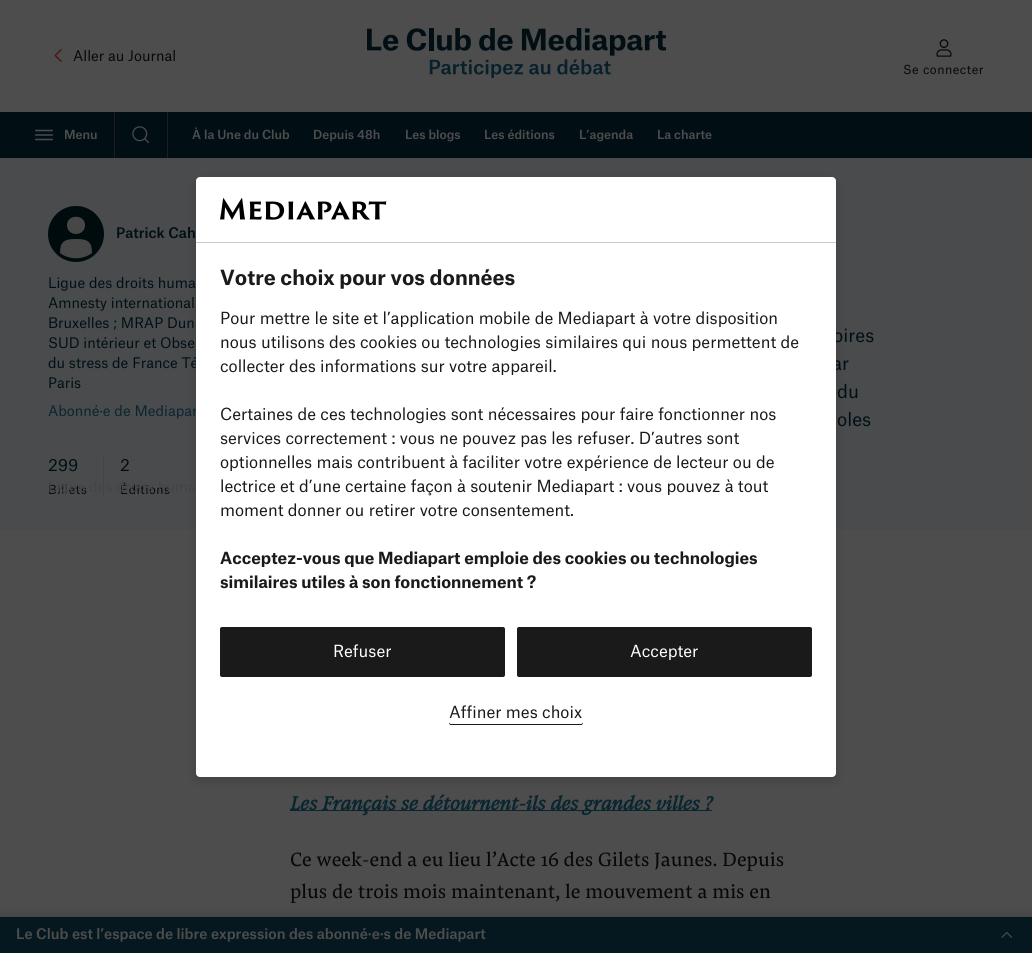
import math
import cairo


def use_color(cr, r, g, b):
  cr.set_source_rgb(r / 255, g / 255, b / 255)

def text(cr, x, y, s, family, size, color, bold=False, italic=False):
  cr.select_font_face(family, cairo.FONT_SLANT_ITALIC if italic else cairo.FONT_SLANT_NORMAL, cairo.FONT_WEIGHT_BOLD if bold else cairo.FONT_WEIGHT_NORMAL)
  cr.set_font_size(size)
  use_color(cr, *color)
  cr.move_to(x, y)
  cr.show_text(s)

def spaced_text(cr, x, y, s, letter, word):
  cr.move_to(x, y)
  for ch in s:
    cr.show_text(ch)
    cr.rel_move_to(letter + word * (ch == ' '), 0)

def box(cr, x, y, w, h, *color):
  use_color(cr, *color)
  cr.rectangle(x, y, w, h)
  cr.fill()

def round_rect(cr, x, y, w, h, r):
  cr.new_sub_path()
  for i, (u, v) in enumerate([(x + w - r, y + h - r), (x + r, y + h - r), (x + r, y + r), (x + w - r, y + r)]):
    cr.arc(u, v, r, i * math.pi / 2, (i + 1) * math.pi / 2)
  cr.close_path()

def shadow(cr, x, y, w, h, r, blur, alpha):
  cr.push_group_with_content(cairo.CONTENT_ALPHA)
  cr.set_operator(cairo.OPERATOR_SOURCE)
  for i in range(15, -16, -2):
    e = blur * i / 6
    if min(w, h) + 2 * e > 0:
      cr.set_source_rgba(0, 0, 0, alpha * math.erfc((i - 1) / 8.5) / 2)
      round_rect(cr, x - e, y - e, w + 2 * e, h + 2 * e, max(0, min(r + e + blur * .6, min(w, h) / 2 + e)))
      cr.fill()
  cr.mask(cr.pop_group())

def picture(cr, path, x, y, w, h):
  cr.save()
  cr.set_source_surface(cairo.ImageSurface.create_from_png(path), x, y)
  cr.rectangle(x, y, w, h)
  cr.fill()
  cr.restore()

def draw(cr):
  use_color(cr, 77, 77, 77)
  cr.paint()
  picture(cr, "img_01.png", 54, 49, 8, 13)
  picture(cr, "img_02.png", 367, 28, 299, 50)
  picture(cr, "img_03.png", 936, 39, 16, 18)
  box(cr, 0, 112, 1032, 46, 1, 15, 21)
  picture(cr, "img_04.png", 35, 129, 18, 12)
  box(cr, 114, 112, 1, 46, 29, 29, 29)
  picture(cr, "img_05.png", 132, 126, 18, 18)
  box(cr, 167, 112, 1, 46, 29, 29, 29)
  box(cr, 0, 158, 1032, 372, 73, 75, 77)
  use_color(cr, 0, 11, 14)
  cr.arc(76, 234, 28, 0, 2 * math.pi)
  cr.fill()
  use_color(cr, 71, 71, 71)
  cr.set_fill_rule(cairo.FILL_RULE_EVEN_ODD)
  cr.new_path()
  cr.move_to(92, 253)
  cr.curve_to(83, 260, 69, 260, 60, 253)
  cr.curve_to(60, 241, 65, 239, 76, 239)
  cr.curve_to(87, 239, 92, 241, 92, 253)
  cr.close_path()
  cr.move_to(85, 225)
  cr.curve_to(85, 237, 67, 237, 67, 225)
  cr.curve_to(67, 214, 85, 214, 85, 225)
  cr.close_path()
  cr.fill()
  box(cr, 103, 454, 1, 44, 69, 69, 69)
  box(cr, 290, 810, 422, 1, 9, 37, 48)
  use_color(cr, 0, 0, 0)
  shadow(cr, 0, 915, 1032, 36, 0, 5, 0.13)
  box(cr, 0, 917, 1032, 36, 6, 24, 31)
  picture(cr, "img_06.png", 1001, 932, 12, 6)
  use_color(cr, 0, 0, 0)
  shadow(cr, 196, 181, 640, 600, 4, 5, 0.15)
  text(cr, 73, 61, "Aller au Journal", "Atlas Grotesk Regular", 14, (8, 8, 8))
  cr.set_font_size(12)
  spaced_text(cr, 903, 74, "Se connecter", 0.5, 0)
  text(cr, 64, 139, "Menu", "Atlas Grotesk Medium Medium", 12, (77, 77, 77))
  text(cr, 192, 139, "À la Une du Club", "Atlas Grotesk Medium Medium", 12, (77, 77, 77))
  text(cr, 313, 139, "Depuis 48h", "Atlas Grotesk Medium Medium", 12, (77, 77, 77))
  text(cr, 405, 139, "Les blogs", "Atlas Grotesk Medium Medium", 12, (77, 77, 77))
  text(cr, 484, 139, "Les éditions", "Atlas Grotesk Medium Medium", 12, (77, 77, 77))
  text(cr, 579, 139, "L’agenda", "Atlas Grotesk Medium Medium", 12, (77, 77, 77))
  text(cr, 657, 139, "La charte", "Atlas Grotesk Medium Medium", 12, (77, 77, 77))
  text(cr, 116, 238, "Patrick Cah", "Atlas Grotesk Medium Medium", 14, (1, 15, 21))
  text(cr, 48, 288, "Ligue des droits huma", "Atlas Grotesk Regular", 14, (1, 15, 21))
  text(cr, 48, 308, "Amnesty international", "Atlas Grotesk Regular", 14, (1, 15, 21))
  text(cr, 48, 328, "Bruxelles ; MRAP Dun", "Atlas Grotesk Regular", 14, (1, 15, 21))
  text(cr, 48, 348, "SUD intérieur et Obse", "Atlas Grotesk Regular", 14, (1, 15, 21))
  text(cr, 48, 368, "du stress de France Té", "Atlas Grotesk Regular", 14, (1, 15, 21))
  text(cr, 48, 388, "Paris", "Atlas Grotesk Regular", 14, (1, 15, 21))
  text(cr, 48, 416, "Abonné·e de Mediapar", "Atlas Grotesk Regular", 14, (9, 37, 48))
  text(cr, 48, 471, "299", "Atlas Grotesk Regular", 16, (1, 15, 21))
  cr.set_font_size(12)
  use_color(cr, 8, 8, 8)
  spaced_text(cr, 48, 494, "Billets", 0.5, 0)
  text(cr, 120, 471, "2", "Atlas Grotesk Regular", 16, (1, 15, 21))
  cr.set_font_size(12)
  use_color(cr, 8, 8, 8)
  spaced_text(cr, 120, 494, "Éditions", 0.5, 0)
  text(cr, 833, 342, "oires", "Atlas Grotesk Regular", 18, (1, 15, 21))
  text(cr, 832, 370, "ar", "Atlas Grotesk Regular", 18, (1, 15, 21))
  text(cr, 837, 398, "du", "Atlas Grotesk Regular", 18, (1, 15, 21))
  text(cr, 837, 426, "oles", "Atlas Grotesk Regular", 18, (1, 15, 21))
  text(cr, 48, 492, "Ligue des droits huma", "Atlas Grotesk Regular", 14, (66, 68, 70))
  text(cr, 290, 810, "Les Français se détournent-ils des grandes villes ?", "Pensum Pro", 20, (9, 37, 48), bold=True, italic=True)
  text(cr, 290, 866, "Ce week-end a eu lieu l’Acte 16 des Gilets Jaunes. Depuis", "Pensum Pro", 20, (8, 8, 8))
  text(cr, 290, 898, "plus de trois mois maintenant, le mouvement a mis en", "Pensum Pro", 20, (8, 8, 8))
  text(cr, 16, 939, "Le Club est l’espace de libre expression des abonné·e·s de Mediapart", "Atlas Grotesk Medium Medium", 14, (77, 77, 77))
  use_color(cr, 255, 255, 255)
  round_rect(cr, 196, 177, 640, 600, 4)
  cr.fill()
  box(cr, 196, 242, 640, 1, 204, 204, 204)
  picture(cr, "img_07.png", 220, 198, 167, 22)
  text(cr, 220, 285, "Votre choix pour vos données", "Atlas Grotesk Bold", 20, (26, 26, 26), bold=True)
  text(cr, 220, 324, "Pour mettre le site et l’application mobile de Mediapart à votre disposition", "Atlas Grotesk Regular", 16, (26, 26, 26))
  text(cr, 220, 348, "nous utilisons des cookies ou technologies similaires qui nous permettent de", "Atlas Grotesk Regular", 16, (26, 26, 26))
  text(cr, 220, 372, "collecter des informations sur votre appareil.", "Atlas Grotesk Regular", 16, (26, 26, 26))
  text(cr, 220, 420, "Certaines de ces technologies sont nécessaires pour faire fonctionner nos", "Atlas Grotesk Regular", 16, (26, 26, 26))
  text(cr, 220, 444, "services correctement : vous ne pouvez pas les refuser. D’autres sont", "Atlas Grotesk Regular", 16, (26, 26, 26))
  text(cr, 220, 468, "optionnelles mais contribuent à faciliter votre expérience de lecteur ou de", "Atlas Grotesk Regular", 16, (26, 26, 26))
  text(cr, 220, 492, "lectrice et d’une certaine façon à soutenir Mediapart : vous pouvez à tout", "Atlas Grotesk Regular", 16, (26, 26, 26))
  text(cr, 220, 516, "moment donner ou retirer votre consentement.", "Atlas Grotesk Regular", 16, (26, 26, 26))
  text(cr, 220, 564, "Acceptez-vous que Mediapart emploie des cookies ou technologies", "Atlas Grotesk Bold", 16, (26, 26, 26), bold=True)
  text(cr, 220, 588, "similaires utiles à son fonctionnement ?", "Atlas Grotesk Bold", 16, (26, 26, 26), bold=True)
  round_rect(cr, 220, 627, 285, 50, 2)
  cr.fill()
  text(cr, 333, 657, "Refuser", "Atlas Grotesk Regular", 16, (255, 255, 255))
  use_color(cr, 26, 26, 26)
  round_rect(cr, 517, 627, 295, 50, 2)
  cr.fill()
  text(cr, 630, 657, "Accepter", "Atlas Grotesk Regular", 16, (255, 255, 255))
  use_color(cr, 26, 26, 26)
  cr.set_fill_rule(cairo.FILL_RULE_WINDING)
  cr.new_path()
  cr.move_to(449, 722)
  cr.curve_to(449, 723, 449, 725, 451, 725)
  cr.line_to(581, 725)
  cr.curve_to(583, 725, 583, 723, 583, 722)
  cr.curve_to(583, 723, 582, 724, 581, 724)
  cr.line_to(451, 724)
  cr.curve_to(450, 724, 449, 723, 449, 722)
  cr.close_path()
  cr.fill()
  text(cr, 449, 718, "Affiner mes choix", "Atlas Grotesk Regular", 16, (26, 26, 26))


surface = cairo.ImageSurface(cairo.FORMAT_RGB24, 1032, 953)
cr = cairo.Context(surface)
options = cairo.FontOptions()
options.set_hint_metrics(cairo.HINT_METRICS_OFF)
options.set_hint_style(cairo.HINT_STYLE_NONE)
cr.set_font_options(options)
cr.set_miter_limit(4)
draw(cr)
surface.write_to_png("out.png")
